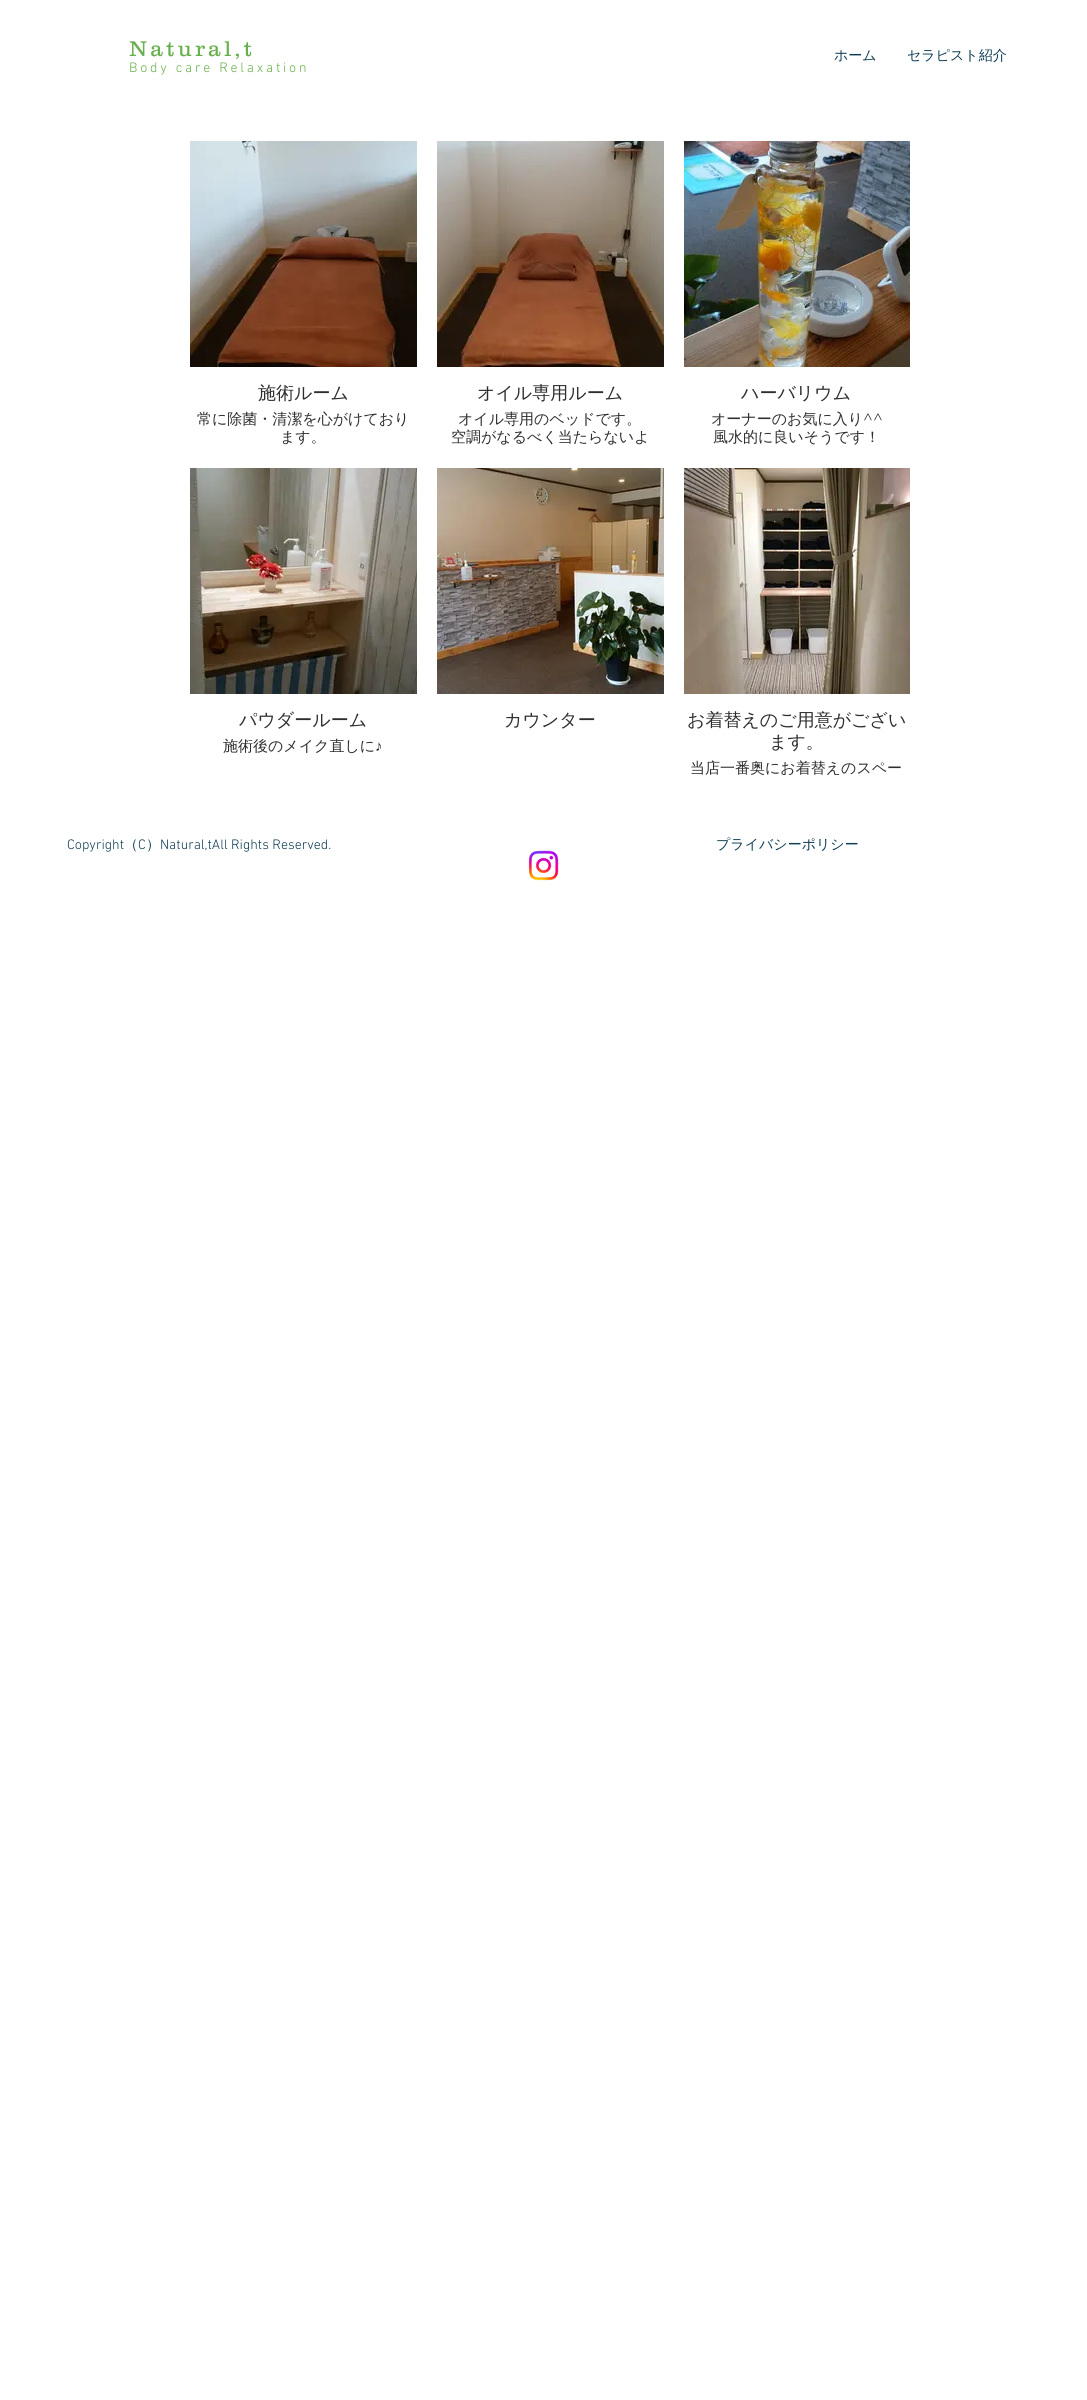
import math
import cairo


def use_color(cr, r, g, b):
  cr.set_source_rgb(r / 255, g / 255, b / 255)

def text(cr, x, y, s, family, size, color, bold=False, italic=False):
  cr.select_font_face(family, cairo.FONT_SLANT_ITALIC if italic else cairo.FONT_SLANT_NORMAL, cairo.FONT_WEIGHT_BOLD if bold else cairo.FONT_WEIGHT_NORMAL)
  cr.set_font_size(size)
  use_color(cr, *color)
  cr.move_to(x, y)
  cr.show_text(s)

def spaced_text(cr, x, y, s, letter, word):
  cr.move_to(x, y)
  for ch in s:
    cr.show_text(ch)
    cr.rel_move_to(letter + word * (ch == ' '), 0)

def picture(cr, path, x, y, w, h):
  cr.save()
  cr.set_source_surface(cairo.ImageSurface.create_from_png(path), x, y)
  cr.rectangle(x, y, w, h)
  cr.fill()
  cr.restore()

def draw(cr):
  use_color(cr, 255, 255, 255)
  cr.paint()
  picture(cr, "img_01.png", 190, 141, 227, 226)
  picture(cr, "img_02.png", 437, 141, 227, 226)
  picture(cr, "img_03.png", 684, 141, 226, 226)
  picture(cr, "img_04.png", 190, 468, 227, 226)
  picture(cr, "img_05.png", 437, 468, 227, 226)
  picture(cr, "img_06.png", 684, 468, 226, 226)
  picture(cr, "img_07.png", 528, 850, 31, 31)
  cr.select_font_face("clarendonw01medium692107 Light")
  cr.set_font_size(22)
  use_color(cr, 104, 176, 77)
  spaced_text(cr, 129, 56, "Natural,t", 3.25, 0)
  cr.select_font_face("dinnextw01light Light")
  cr.set_font_size(14)
  spaced_text(cr, 129, 72, "Body care Relaxation", 2.75, 0)
  text(cr, 834, 60, "ホーム", "WenQuanYi Zen Hei Medium", 14, (14, 60, 83))
  text(cr, 907, 60, "セラピスト紹介", "WenQuanYi Zen Hei Medium", 14, (14, 60, 83))
  text(cr, 258, 399, "施術ルーム", "WenQuanYi Zen Hei Medium", 18, (47, 46, 46))
  text(cr, 197, 424, "常に除菌・清潔を心がけており", "WenQuanYi Zen Hei Medium", 15, (47, 46, 46))
  text(cr, 280, 442, "ます。", "WenQuanYi Zen Hei Medium", 15, (47, 46, 46))
  text(cr, 477, 399, "オイル専用ルーム", "WenQuanYi Zen Hei Medium", 18, (47, 46, 46))
  text(cr, 458, 424, "オイル専用のベッドです。", "WenQuanYi Zen Hei Medium", 15, (47, 46, 46))
  text(cr, 451, 442, "空調がなるべく当たらないよ", "WenQuanYi Zen Hei Medium", 15, (47, 46, 46))
  text(cr, 741, 399, "ハーバリウム", "WenQuanYi Zen Hei Medium", 18, (47, 46, 46))
  text(cr, 711, 424, "オーナーのお気に入り", "WenQuanYi Zen Hei Medium", 15, (47, 46, 46))
  text(cr, 863, 424, "^^", "helvetica Light", 15, (47, 46, 46))
  text(cr, 713, 442, "風水的に良いそうです！", "WenQuanYi Zen Hei Medium", 15, (47, 46, 46))
  text(cr, 239, 726, "パウダールーム", "WenQuanYi Zen Hei Medium", 18, (47, 46, 46))
  text(cr, 223, 751, "施術後のメイク直しに", "WenQuanYi Zen Hei Medium", 15, (47, 46, 46))
  text(cr, 375, 751, "♪", "Liberation Sans", 15, (47, 46, 46))
  text(cr, 504, 726, "カウンター", "WenQuanYi Zen Hei Medium", 18, (47, 46, 46))
  text(cr, 687, 726, "お着替えのご用意がござい", "WenQuanYi Zen Hei Medium", 18, (47, 46, 46))
  text(cr, 769, 748, "ます。", "WenQuanYi Zen Hei Medium", 18, (47, 46, 46))
  cr.save()
  cr.rectangle(684, 759, 226, 16)
  cr.clip()
  text(cr, 690, 773, "当店一番奥にお着替えのスペー", "WenQuanYi Zen Hei Medium", 15, (47, 46, 46))
  cr.restore()
  text(cr, 67, 849, "Copyright", "dinnextw01light Light", 14, (14, 60, 83))
  text(cr, 124, 849, "（", "WenQuanYi Zen Hei Medium", 14, (14, 60, 83))
  text(cr, 138, 849, "C", "dinnextw01light Light", 14, (14, 60, 83))
  text(cr, 146, 849, "）", "WenQuanYi Zen Hei Medium", 14, (14, 60, 83))
  text(cr, 160, 849, "Natural,tAll Rights Reserved.", "dinnextw01light Light", 14, (14, 60, 83))
  text(cr, 716, 849, "プライバシーポリシー", "WenQuanYi Zen Hei Medium", 14, (14, 60, 83))


surface = cairo.ImageSurface(cairo.FORMAT_RGB24, 1087, 2400)
cr = cairo.Context(surface)
options = cairo.FontOptions()
options.set_hint_metrics(cairo.HINT_METRICS_OFF)
options.set_hint_style(cairo.HINT_STYLE_NONE)
cr.set_font_options(options)
cr.set_miter_limit(4)
draw(cr)
surface.write_to_png("out.png")
